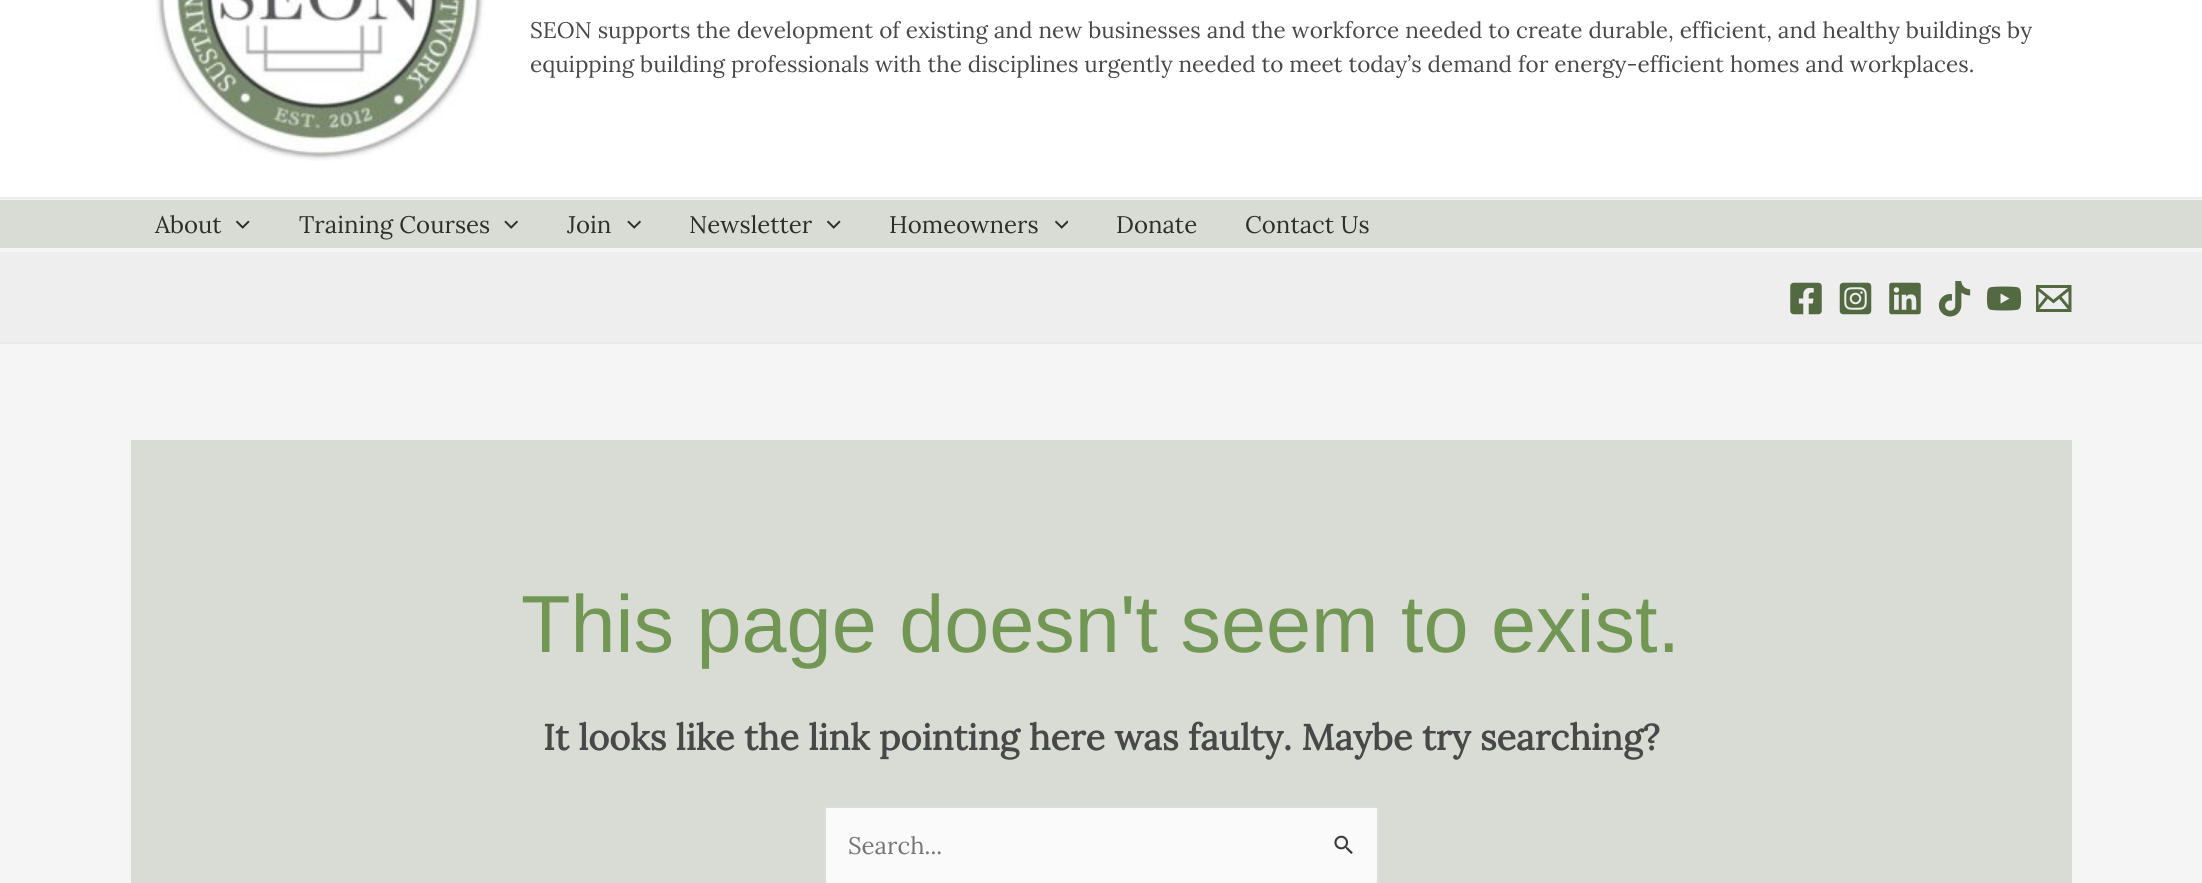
import math
import cairo


def use_color(cr, r, g, b):
  cr.set_source_rgb(r / 255, g / 255, b / 255)

def text(cr, x, y, s, family, size, color, bold=False, italic=False):
  cr.select_font_face(family, cairo.FONT_SLANT_ITALIC if italic else cairo.FONT_SLANT_NORMAL, cairo.FONT_WEIGHT_BOLD if bold else cairo.FONT_WEIGHT_NORMAL)
  cr.set_font_size(size)
  use_color(cr, *color)
  cr.move_to(x, y)
  cr.show_text(s)

def box(cr, x, y, w, h, *color):
  use_color(cr, *color)
  cr.rectangle(x, y, w, h)
  cr.fill()

def round_rect(cr, x, y, w, h, r):
  cr.new_sub_path()
  for i, (u, v) in enumerate([(x + w - r, y + h - r), (x + r, y + h - r), (x + r, y + r), (x + w - r, y + r)]):
    cr.arc(u, v, r, i * math.pi / 2, (i + 1) * math.pi / 2)
  cr.close_path()

def picture(cr, path, x, y, w, h):
  cr.save()
  cr.set_source_surface(cairo.ImageSurface.create_from_png(path), x, y)
  cr.rectangle(x, y, w, h)
  cr.fill()
  cr.restore()

def draw(cr):
  use_color(cr, 245, 245, 245)
  cr.paint()
  box(cr, 0, 0, 2202, 197, 255, 255, 255)
  box(cr, 0, 197, 2202, 2, 234, 234, 234)
  picture(cr, "img_01.png", 155, 0, 329, 161)
  box(cr, 0, 200, 2202, 48, 216, 220, 212)
  picture(cr, "img_02.png", 236, 220, 14, 9)
  picture(cr, "img_03.png", 504, 220, 14, 9)
  picture(cr, "img_03.png", 627, 220, 14, 9)
  picture(cr, "img_02.png", 827, 220, 14, 9)
  picture(cr, "img_04.png", 1055, 220, 13, 9)
  box(cr, 0, 252, 2202, 90, 238, 238, 238)
  box(cr, 0, 342, 2202, 2, 234, 234, 234)
  picture(cr, "img_05.png", 1790, 282, 32, 33)
  picture(cr, "img_06.png", 1839, 282, 33, 33)
  picture(cr, "img_07.png", 1889, 282, 32, 33)
  picture(cr, "img_08.png", 1938, 281, 33, 36)
  picture(cr, "img_09.png", 1986, 286, 36, 25)
  picture(cr, "img_10.png", 2036, 285, 36, 27)
  box(cr, 131, 440, 1941, 443, 217, 220, 213)
  use_color(cr, 250, 250, 250)
  round_rect(cr, 825, 807, 553, 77, 2)
  cr.fill_preserve()
  use_color(cr, 221, 221, 221)
  cr.stroke()
  picture(cr, "img_11.png", 1334, 835, 19, 19)
  text(cr, 530, 38, "SEON supports the development of existing and new businesses and the workforce needed to create durable, efficient, and healthy buildings by", "Lora", 22.5, (73, 72, 72))
  text(cr, 530, 72, "equipping building professionals with the disciplines urgently needed to meet today’s demand for energy-efficient homes and workplaces.", "Lora", 22.5, (73, 72, 72))
  text(cr, 155, 233, "About", "Lora", 24, (45, 46, 42))
  text(cr, 299, 233, "Training Courses", "Lora", 24, (45, 46, 42))
  text(cr, 567, 233, "Join", "Lora", 24, (45, 46, 42))
  text(cr, 689, 233, "Newsletter", "Lora", 24, (45, 46, 42))
  text(cr, 889, 233, "Homeowners", "Lora", 24, (45, 46, 42))
  text(cr, 1116, 233, "Donate", "Lora", 24, (45, 46, 42))
  text(cr, 1245, 233, "Contact Us", "Lora", 24, (45, 46, 42))
  text(cr, 521, 652, "This page doesn't seem to exist.", "Liberation Sans", 81, (114, 150, 83))
  text(cr, 543, 750, "It looks like the link pointing here was faulty. Maybe try searching?", "Lora", 36, (73, 72, 72), bold=True)
  text(cr, 848, 854, "Search...", "Lora", 24, (117, 117, 117))


surface = cairo.ImageSurface(cairo.FORMAT_RGB24, 2202, 883)
cr = cairo.Context(surface)
options = cairo.FontOptions()
options.set_hint_metrics(cairo.HINT_METRICS_OFF)
options.set_hint_style(cairo.HINT_STYLE_NONE)
cr.set_font_options(options)
cr.set_miter_limit(4)
draw(cr)
surface.write_to_png("out.png")
